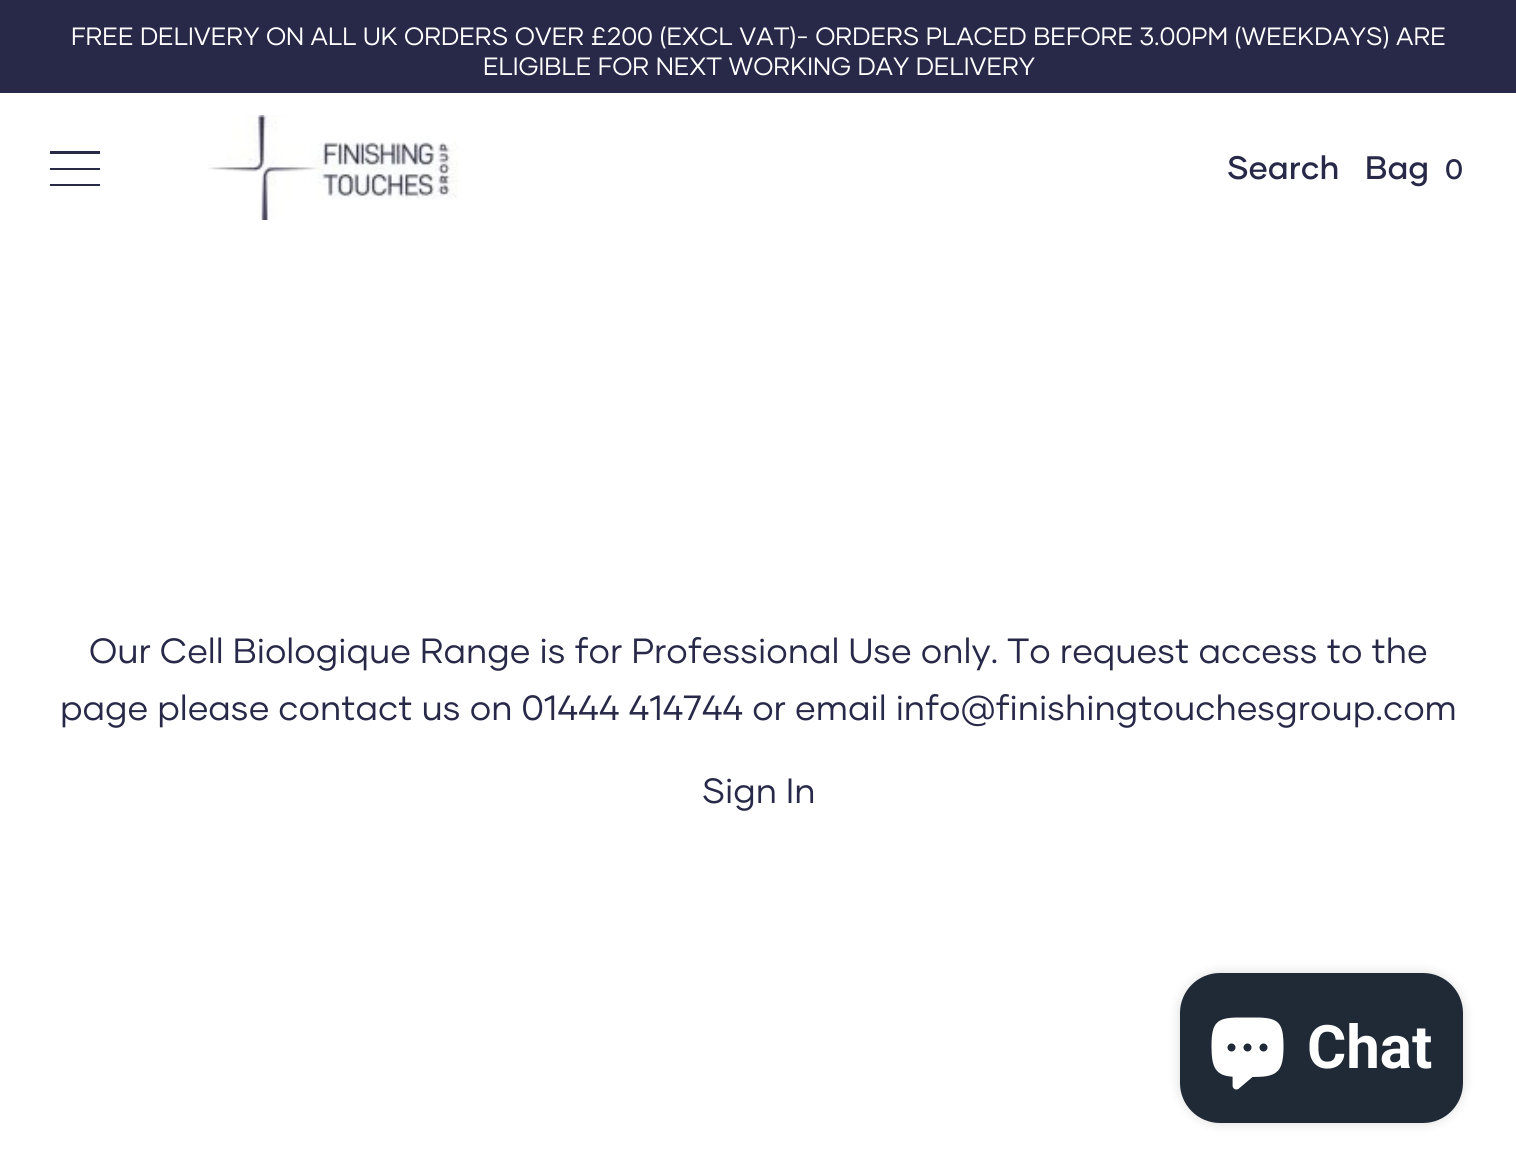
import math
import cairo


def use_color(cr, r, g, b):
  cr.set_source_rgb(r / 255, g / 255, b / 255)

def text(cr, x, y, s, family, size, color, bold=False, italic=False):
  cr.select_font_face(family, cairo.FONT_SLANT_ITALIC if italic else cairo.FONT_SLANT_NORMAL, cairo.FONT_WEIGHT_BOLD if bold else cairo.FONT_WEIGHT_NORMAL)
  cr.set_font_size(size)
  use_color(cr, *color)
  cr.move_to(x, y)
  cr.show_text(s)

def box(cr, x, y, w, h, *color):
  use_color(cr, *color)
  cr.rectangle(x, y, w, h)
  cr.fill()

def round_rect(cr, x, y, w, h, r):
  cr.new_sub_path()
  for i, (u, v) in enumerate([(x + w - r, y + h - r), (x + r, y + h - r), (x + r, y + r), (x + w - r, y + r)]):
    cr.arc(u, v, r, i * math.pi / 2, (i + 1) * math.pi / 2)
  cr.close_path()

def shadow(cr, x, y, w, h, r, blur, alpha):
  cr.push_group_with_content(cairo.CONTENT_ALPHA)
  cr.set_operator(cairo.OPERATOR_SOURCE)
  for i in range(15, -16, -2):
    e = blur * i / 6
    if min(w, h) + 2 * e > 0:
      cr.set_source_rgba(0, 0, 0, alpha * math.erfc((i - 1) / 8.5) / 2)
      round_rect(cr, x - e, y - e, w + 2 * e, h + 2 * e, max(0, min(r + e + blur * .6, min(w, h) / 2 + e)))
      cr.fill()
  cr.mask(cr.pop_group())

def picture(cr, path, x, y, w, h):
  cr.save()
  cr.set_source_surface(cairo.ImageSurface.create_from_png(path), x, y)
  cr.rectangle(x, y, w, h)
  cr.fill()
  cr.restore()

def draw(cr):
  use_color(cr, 255, 255, 255)
  cr.paint()
  box(cr, 0, 0, 1516, 93, 40, 41, 73)
  cr.new_path()
  cr.move_to(50, 186)
  cr.line_to(50, 184)
  cr.line_to(100, 184)
  cr.line_to(100, 186)
  cr.close_path()
  cr.move_to(50, 168)
  cr.line_to(100, 168)
  cr.line_to(100, 170)
  cr.line_to(50, 170)
  cr.close_path()
  cr.move_to(50, 151)
  cr.line_to(100, 151)
  cr.line_to(100, 154)
  cr.line_to(50, 154)
  cr.close_path()
  cr.fill()
  picture(cr, "img_01.png", 208, 115, 250, 105)
  use_color(cr, 0, 0, 0)
  shadow(cr, 1180, 973, 283, 150, 40, 6, 0.15)
  use_color(cr, 32, 42, 54)
  round_rect(cr, 1180, 973, 283, 150, 40)
  cr.fill()
  picture(cr, "img_02.png", 1211, 1017, 73, 73)
  text(cr, 71, 45, "FREE DELIVERY ON ALL UK ORDERS OVER £200 (EXCL VAT)- ORDERS PLACED BEFORE 3.00PM (WEEKDAYS) ARE", "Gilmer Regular", 25, (255, 255, 255))
  text(cr, 483, 75, "ELIGIBLE FOR NEXT WORKING DAY DELIVERY", "Gilmer Regular", 25, (255, 255, 255))
  text(cr, 1227, 179, "Search", "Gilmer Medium", 32.5, (40, 41, 73))
  text(cr, 1365, 179, "Bag", "Gilmer Medium", 32.5, (40, 41, 73))
  text(cr, 1445, 179, "0", "Gilmer Medium", 28, (40, 41, 73))
  text(cr, 89, 663, "Our Cell Biologique Range is for Professional Use only. To request access to the", "Gilmer Regular", 35, (40, 41, 73))
  text(cr, 60, 720, "page please contact us on 01444 414744 or email info@finishingtouchesgroup.com", "Gilmer Regular", 35, (40, 41, 73))
  text(cr, 702, 803, "Sign In", "Gilmer Regular", 35, (40, 41, 73))
  text(cr, 1307, 1068, "Chat", "Roboto", 60, (255, 255, 255), bold=True)


surface = cairo.ImageSurface(cairo.FORMAT_RGB24, 1516, 1173)
cr = cairo.Context(surface)
options = cairo.FontOptions()
options.set_hint_metrics(cairo.HINT_METRICS_OFF)
options.set_hint_style(cairo.HINT_STYLE_NONE)
cr.set_font_options(options)
cr.set_miter_limit(4)
draw(cr)
surface.write_to_png("out.png")
